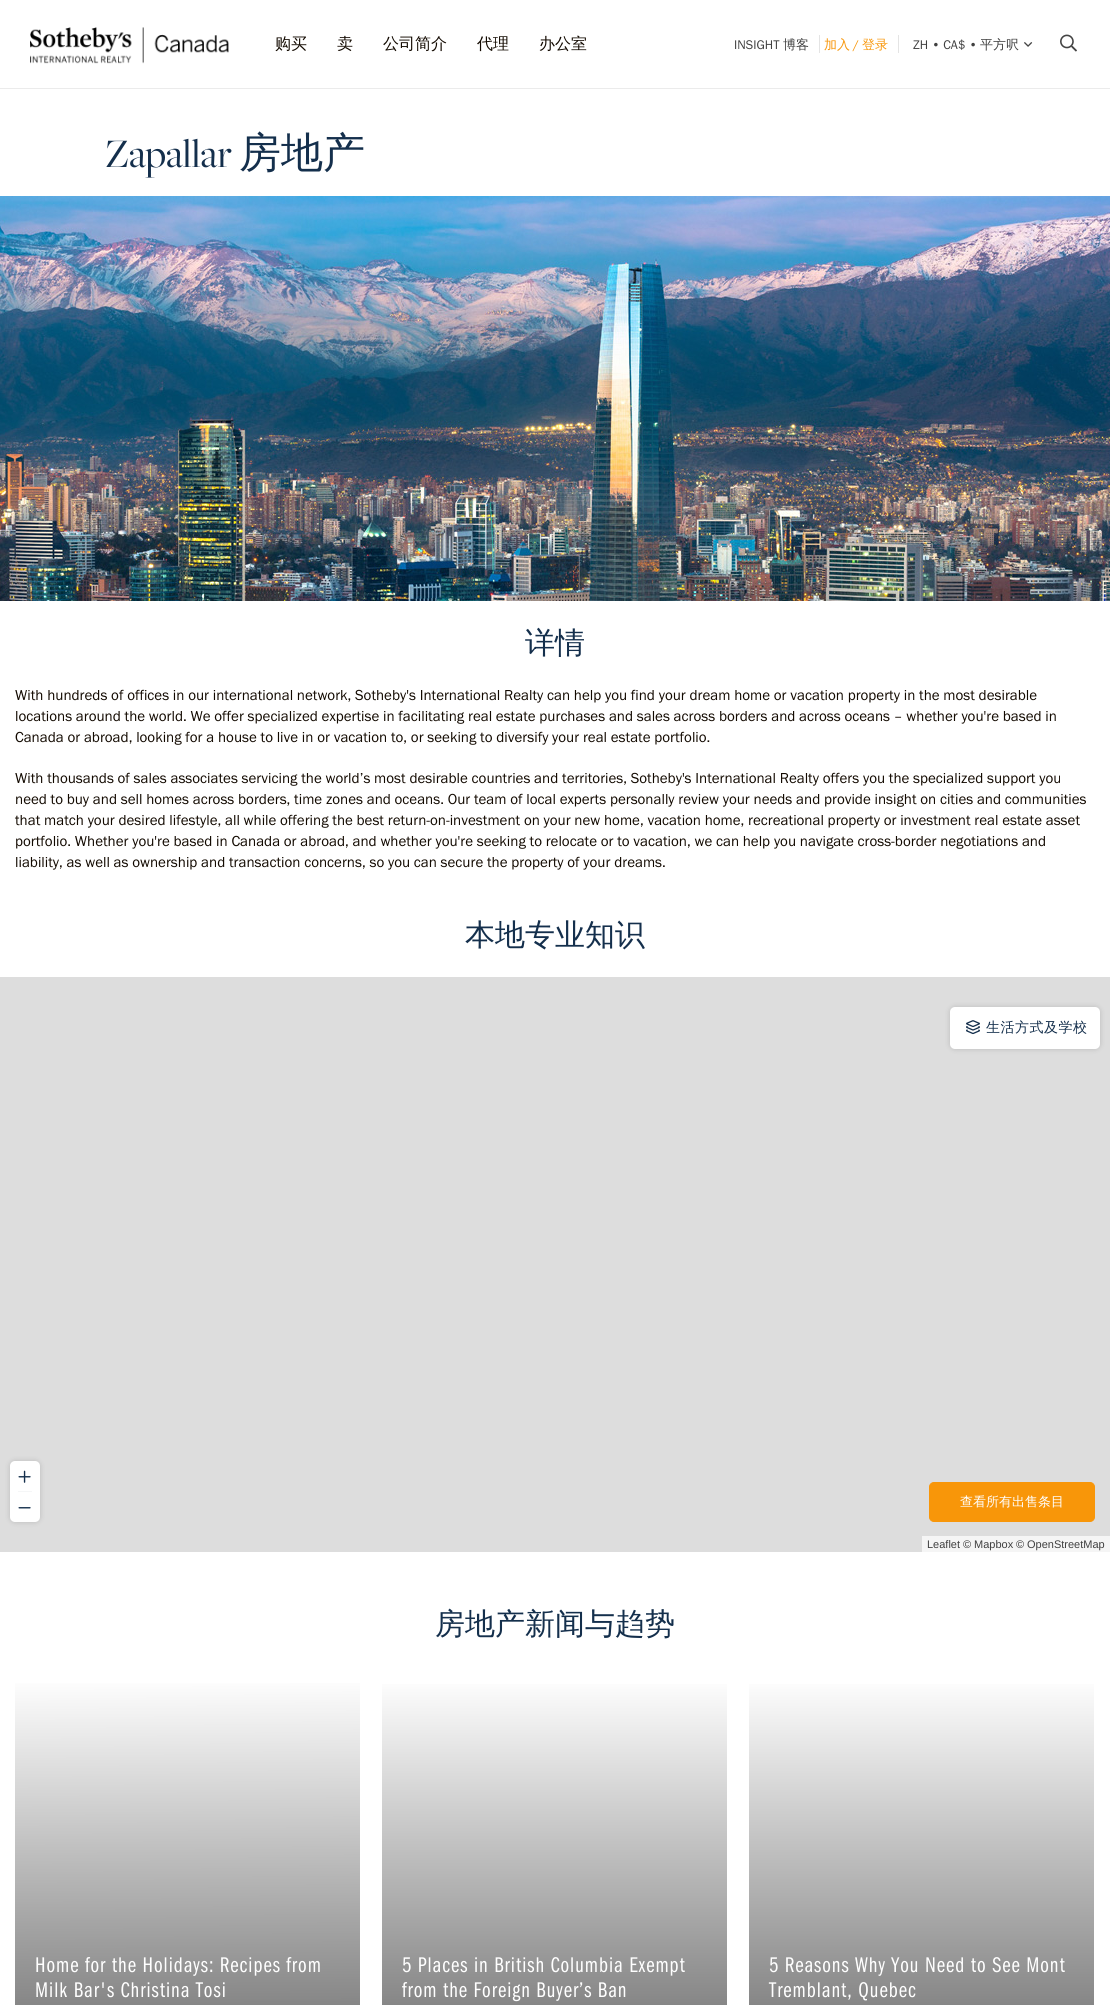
import math
import cairo


def use_color(cr, r, g, b):
  cr.set_source_rgb(r / 255, g / 255, b / 255)

def text(cr, x, y, s, family, size, color, bold=False, italic=False):
  cr.select_font_face(family, cairo.FONT_SLANT_ITALIC if italic else cairo.FONT_SLANT_NORMAL, cairo.FONT_WEIGHT_BOLD if bold else cairo.FONT_WEIGHT_NORMAL)
  cr.set_font_size(size)
  use_color(cr, *color)
  cr.move_to(x, y)
  cr.show_text(s)

def spaced_text(cr, x, y, s, letter, word):
  cr.move_to(x, y)
  for ch in s:
    cr.show_text(ch)
    cr.rel_move_to(letter + word * (ch == ' '), 0)

def box(cr, x, y, w, h, *color):
  use_color(cr, *color)
  cr.rectangle(x, y, w, h)
  cr.fill()

def round_rect(cr, x, y, w, h, r):
  cr.new_sub_path()
  for i, (u, v) in enumerate([(x + w - r, y + h - r), (x + r, y + h - r), (x + r, y + r), (x + w - r, y + r)]):
    cr.arc(u, v, r, i * math.pi / 2, (i + 1) * math.pi / 2)
  cr.close_path()

def shadow(cr, x, y, w, h, r, blur, alpha):
  cr.push_group_with_content(cairo.CONTENT_ALPHA)
  cr.set_operator(cairo.OPERATOR_SOURCE)
  for i in range(15, -16, -2):
    e = blur * i / 6
    if min(w, h) + 2 * e > 0:
      cr.set_source_rgba(0, 0, 0, alpha * math.erfc((i - 1) / 8.5) / 2)
      round_rect(cr, x - e, y - e, w + 2 * e, h + 2 * e, max(0, min(r + e + blur * .6, min(w, h) / 2 + e)))
      cr.fill()
  cr.mask(cr.pop_group())

def picture(cr, path, x, y, w, h):
  cr.save()
  cr.set_source_surface(cairo.ImageSurface.create_from_png(path), x, y)
  cr.rectangle(x, y, w, h)
  cr.fill()
  cr.restore()

def draw(cr):
  use_color(cr, 255, 255, 255)
  cr.paint()
  box(cr, 0, 88, 1110, 1, 235, 235, 235)
  picture(cr, "img_01.png", 30, 27, 199, 37)
  box(cr, 819, 35, 1, 18, 228, 228, 228)
  box(cr, 898, 35, 1, 18, 228, 228, 228)
  picture(cr, "img_02.png", 1024, 42, 9, 5)
  picture(cr, "img_03.png", 1060, 34, 17, 18)
  picture(cr, "img_04.png", 0, 196, 1110, 405)
  box(cr, 0, 977, 1110, 575, 221, 221, 221)
  use_color(cr, 0, 0, 0)
  shadow(cr, 950, 1007, 150, 42, 5, 3, 0.15)
  use_color(cr, 255, 255, 255)
  round_rect(cr, 950, 1007, 150, 42, 5)
  cr.fill()
  picture(cr, "img_05.png", 966, 1020, 14, 15)
  use_color(cr, 0, 0, 0)
  shadow(cr, 10, 1461, 30, 61, 5, 3, 0.15)
  use_color(cr, 255, 255, 255)
  round_rect(cr, 10, 1461, 30, 61, 5)
  cr.fill()
  picture(cr, "img_06.png", 18, 1470, 13, 13)
  box(cr, 18, 1491, 14, 1, 245, 246, 247)
  picture(cr, "img_07.png", 18, 1507, 13, 2)
  use_color(cr, 248, 150, 9)
  round_rect(cr, 929.5, 1482.5, 165, 39, 4.5)
  cr.fill_preserve()
  cr.set_line_width(1)
  cr.stroke()
  box(cr, 922, 1536, 188, 16, 245, 245, 245)
  gradient = cairo.LinearGradient(187, 1677, 188, 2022)
  gradient.add_color_stop_rgba(0, 1, 1, 1, 1)
  gradient.add_color_stop_rgba(1, 0.502, 0.502, 0.502, 1)
  cr.set_source(gradient)
  cr.rectangle(15, 1683, 345, 322)
  cr.fill()
  gradient = cairo.LinearGradient(555, 1677, 555, 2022)
  gradient.add_color_stop_rgba(0, 1, 1, 1, 1)
  gradient.add_color_stop_rgba(1, 0.502, 0.502, 0.502, 1)
  cr.set_source(gradient)
  cr.rectangle(382, 1684, 345, 321)
  cr.fill()
  gradient = cairo.LinearGradient(922, 1677, 922, 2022)
  gradient.add_color_stop_rgba(0, 1, 1, 1, 1)
  gradient.add_color_stop_rgba(1, 0.502, 0.502, 0.502, 1)
  cr.set_source(gradient)
  cr.rectangle(749, 1684, 345, 321)
  cr.fill()
  text(cr, 275, 49, "购买", "WenQuanYi Zen Hei Medium", 16, (18, 9, 0))
  text(cr, 337, 49, "卖", "WenQuanYi Zen Hei Medium", 16, (18, 9, 0))
  text(cr, 383, 49, "公司简介", "WenQuanYi Zen Hei Medium", 16, (18, 9, 0))
  text(cr, 477, 49, "代理", "WenQuanYi Zen Hei Medium", 16, (18, 9, 0))
  text(cr, 539, 49, "办公室", "WenQuanYi Zen Hei Medium", 16, (18, 9, 0))
  text(cr, 734, 49, "INSIGHT", "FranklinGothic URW", 13, (64, 64, 64))
  text(cr, 783, 49, "博客", "WenQuanYi Zen Hei Medium", 13, (64, 64, 64))
  text(cr, 824, 49, "加入", "WenQuanYi Zen Hei Medium", 13, (248, 150, 9))
  text(cr, 853, 49, "/", "FranklinGothic URW", 13, (248, 150, 9))
  text(cr, 862, 49, "登录", "WenQuanYi Zen Hei Medium", 13, (248, 150, 9))
  text(cr, 913, 49, "ZH • CA$ •", "FranklinGothic URW", 13, (64, 64, 64))
  text(cr, 980, 49, "平方呎", "WenQuanYi Zen Hei Medium", 13, (64, 64, 64))
  text(cr, 105, 167, "Zapallar", "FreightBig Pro", 42, (20, 47, 76))
  text(cr, 239, 167, "房地产", "WenQuanYi Zen Hei Medium", 42, (20, 47, 76))
  text(cr, 525, 653, "详情", "WenQuanYi Zen Hei Medium", 30, (20, 47, 76))
  text(cr, 15, 700, "With hundreds of offices in our international network, Sotheby's International Realty can help you find your dream home or vacation property in the most desirable", "FranklinGothic URW", 15, (18, 9, 0))
  text(cr, 15, 721, "locations around the world. We offer specialized expertise in facilitating real estate purchases and sales across borders and across oceans – whether you're based in", "FranklinGothic URW", 15, (18, 9, 0))
  text(cr, 15, 742, "Canada or abroad, looking for a house to live in or vacation to, or seeking to diversify your real estate portfolio.", "FranklinGothic URW", 15, (18, 9, 0))
  text(cr, 15, 783, "With thousands of sales associates servicing the world’s most desirable countries and territories, Sotheby's International Realty offers you the specialized support you", "FranklinGothic URW", 15, (18, 9, 0))
  text(cr, 15, 804, "need to buy and sell homes across borders, time zones and oceans. Our team of local experts personally review your needs and provide insight on cities and communities", "FranklinGothic URW", 15, (18, 9, 0))
  text(cr, 15, 825, "that match your desired lifestyle, all while offering the best return-on-investment on your new home, vacation home, recreational property or investment real estate asset", "FranklinGothic URW", 15, (18, 9, 0))
  text(cr, 15, 846, "portfolio. Whether you're based in Canada or abroad, and whether you're seeking to relocate or to vacation, we can help you navigate cross-border negotiations and", "FranklinGothic URW", 15, (18, 9, 0))
  text(cr, 15, 867, "liability, as well as ownership and transaction concerns, so you can secure the property of your dreams.", "FranklinGothic URW", 15, (18, 9, 0))
  text(cr, 465, 945, "本地专业知识", "WenQuanYi Zen Hei Medium", 30, (20, 47, 76))
  cr.set_font_size(14)
  spaced_text(cr, 986, 1032, "生活方式及学校", 0.5, 0)
  text(cr, 960, 1506, "查看所有出售条目", "WenQuanYi Zen Hei Medium", 13, (255, 255, 255))
  text(cr, 927, 1548, "Leaflet", "Liberation Sans", 11, (64, 64, 64))
  text(cr, 963, 1548, "©", "Liberation Sans", 11, (51, 51, 51))
  text(cr, 974, 1548, "Mapbox", "Liberation Sans", 11, (64, 64, 64))
  text(cr, 1016, 1548, "©", "Liberation Sans", 11, (51, 51, 51))
  text(cr, 1027, 1548, "OpenStreetMap", "Liberation Sans", 11, (64, 64, 64))
  text(cr, 435, 1634, "房地产新闻与趋势", "WenQuanYi Zen Hei Medium", 30, (20, 47, 76))
  cr.select_font_face("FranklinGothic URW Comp")
  cr.set_font_size(22)
  use_color(cr, 255, 255, 255)
  spaced_text(cr, 35, 1972, "Home for the Holidays: Recipes from", 1, 0)
  spaced_text(cr, 35, 1997, "Milk Bar's Christina Tosi", 1, 0)
  spaced_text(cr, 402, 1972, "5 Places in British Columbia Exempt", 1, 0)
  spaced_text(cr, 402, 1997, "from the Foreign Buyer’s Ban", 1, 0)
  spaced_text(cr, 769, 1972, "5 Reasons Why You Need to See Mont", 1, 0)
  spaced_text(cr, 769, 1997, "Tremblant, Quebec", 1, 0)


surface = cairo.ImageSurface(cairo.FORMAT_RGB24, 1110, 2005)
cr = cairo.Context(surface)
options = cairo.FontOptions()
options.set_hint_metrics(cairo.HINT_METRICS_OFF)
options.set_hint_style(cairo.HINT_STYLE_NONE)
cr.set_font_options(options)
cr.set_miter_limit(4)
draw(cr)
surface.write_to_png("out.png")
